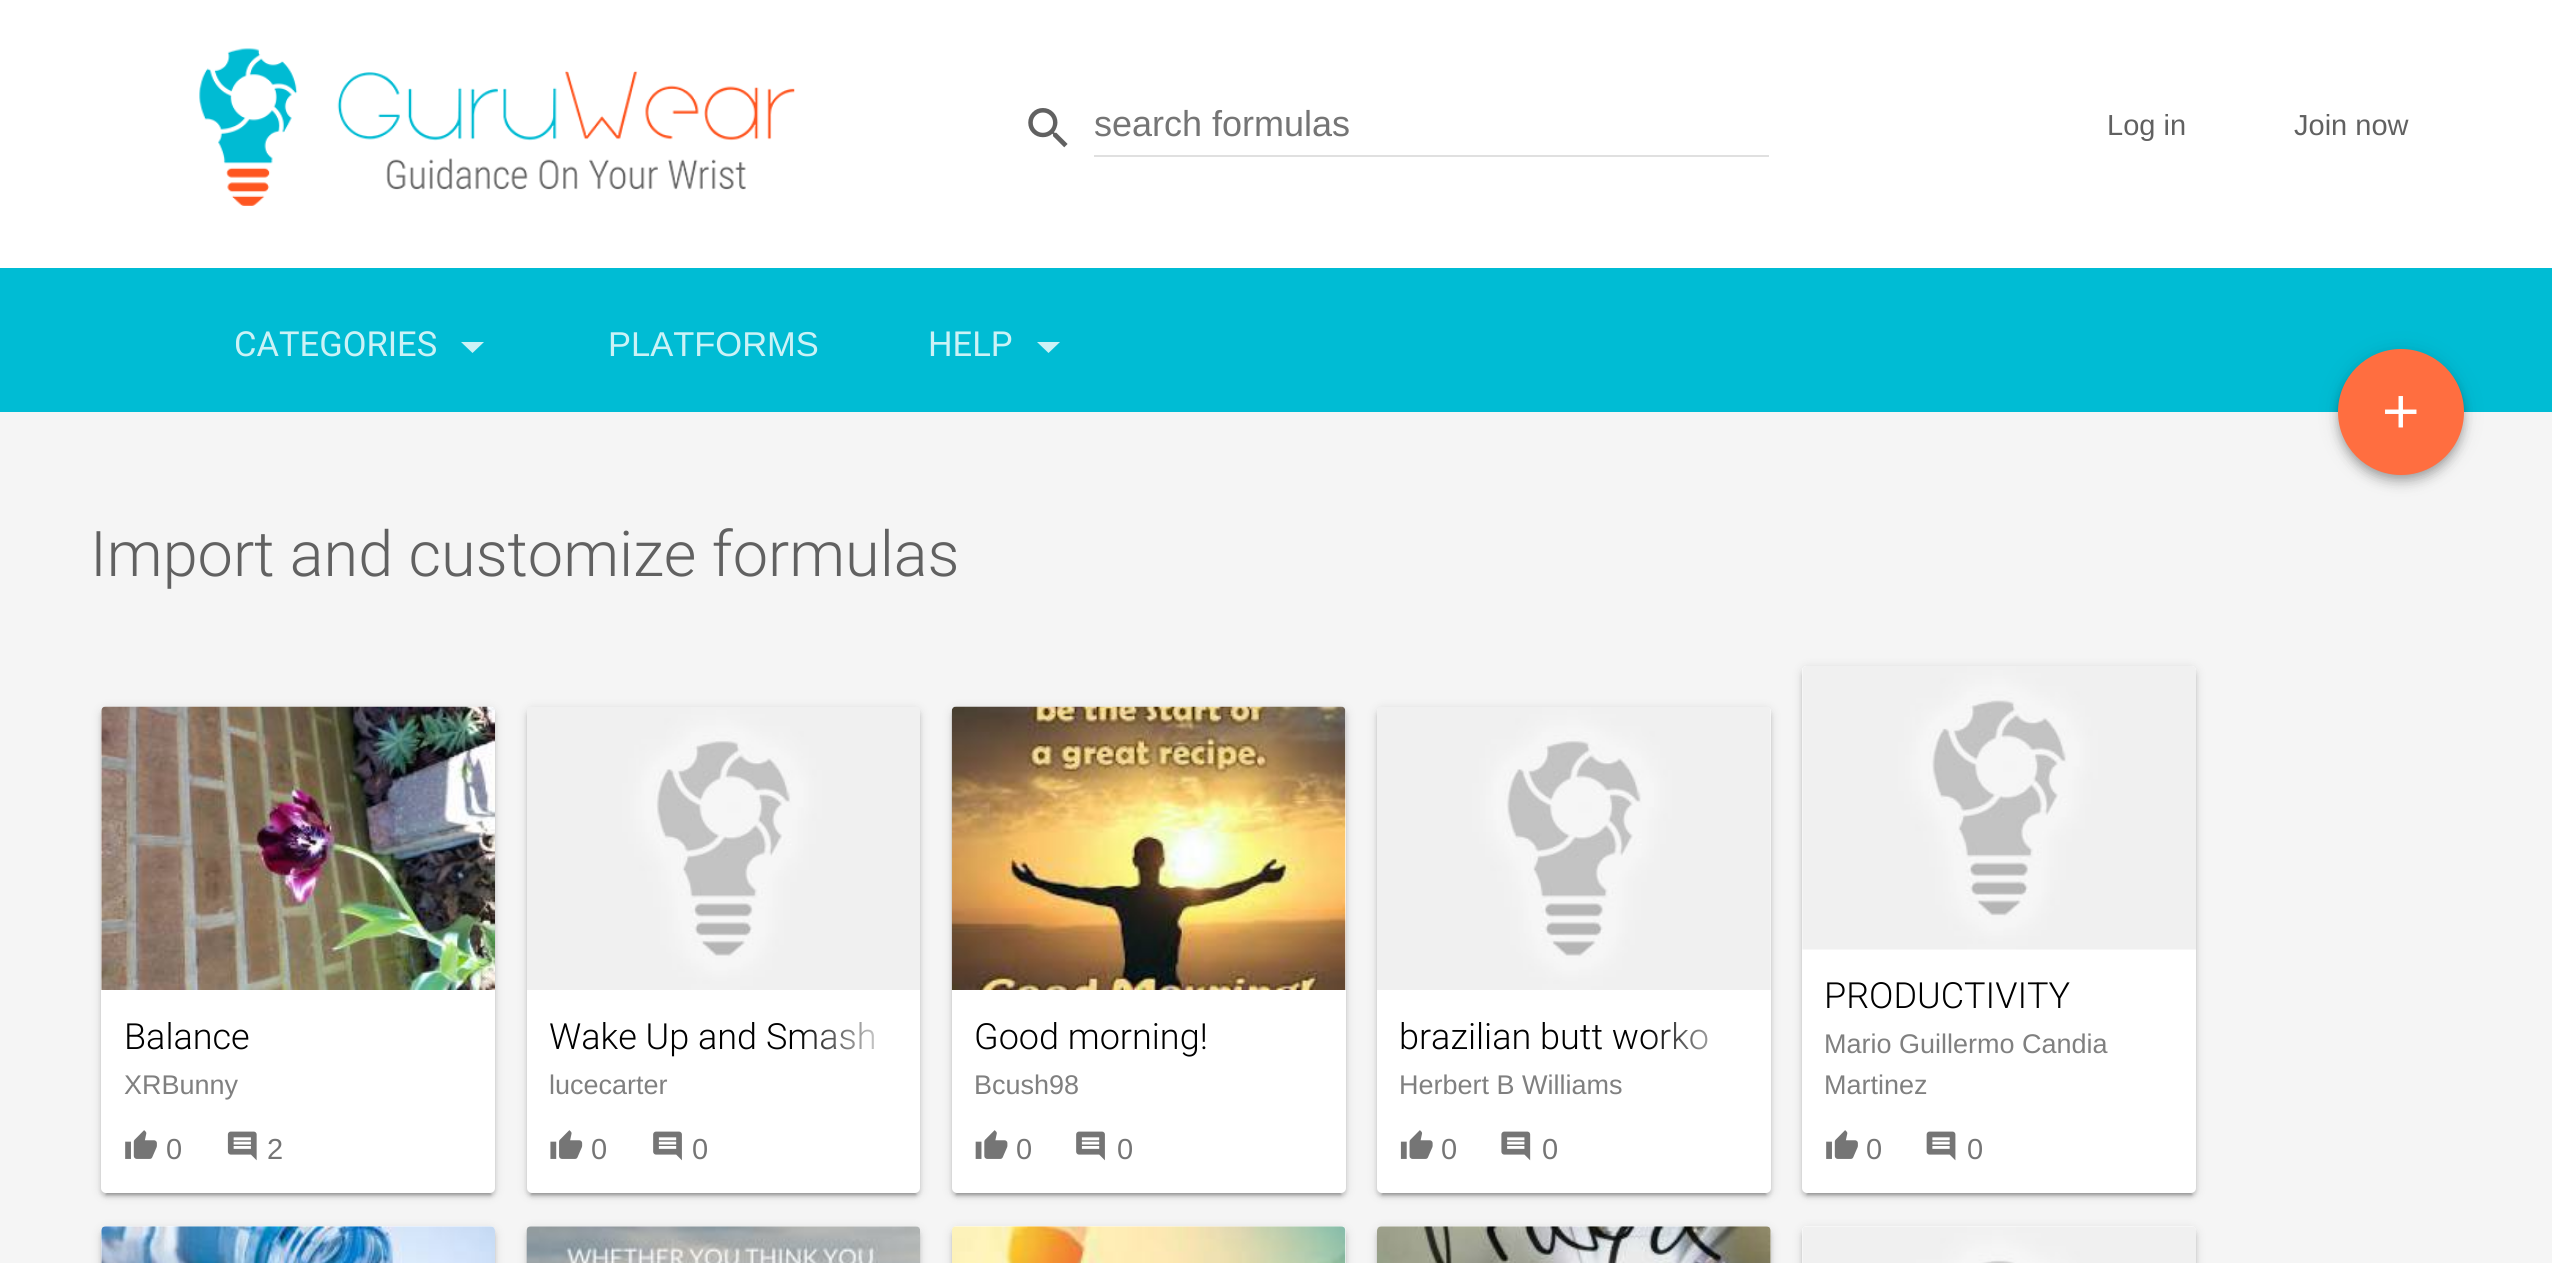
import math
import cairo


def use_color(cr, r, g, b):
  cr.set_source_rgb(r / 255, g / 255, b / 255)

def text(cr, x, y, s, family, size, color, bold=False, italic=False):
  cr.select_font_face(family, cairo.FONT_SLANT_ITALIC if italic else cairo.FONT_SLANT_NORMAL, cairo.FONT_WEIGHT_BOLD if bold else cairo.FONT_WEIGHT_NORMAL)
  cr.set_font_size(size)
  use_color(cr, *color)
  cr.move_to(x, y)
  cr.show_text(s)

def box(cr, x, y, w, h, *color):
  use_color(cr, *color)
  cr.rectangle(x, y, w, h)
  cr.fill()

def round_rect(cr, x, y, w, h, r):
  cr.new_sub_path()
  for i, (u, v) in enumerate([(x + w - r, y + h - r), (x + r, y + h - r), (x + r, y + r), (x + w - r, y + r)]):
    cr.arc(u, v, r, i * math.pi / 2, (i + 1) * math.pi / 2)
  cr.close_path()

def shadow(cr, x, y, w, h, r, blur, alpha):
  cr.push_group_with_content(cairo.CONTENT_ALPHA)
  cr.set_operator(cairo.OPERATOR_SOURCE)
  for i in range(15, -16, -2):
    e = blur * i / 6
    if min(w, h) + 2 * e > 0:
      cr.set_source_rgba(0, 0, 0, alpha * math.erfc((i - 1) / 8.5) / 2)
      round_rect(cr, x - e, y - e, w + 2 * e, h + 2 * e, max(0, min(r + e + blur * .6, min(w, h) / 2 + e)))
      cr.fill()
  cr.mask(cr.pop_group())

def picture(cr, path, x, y, w, h):
  cr.save()
  cr.set_source_surface(cairo.ImageSurface.create_from_png(path), x, y)
  cr.rectangle(x, y, w, h)
  cr.fill()
  cr.restore()

def draw(cr):
  use_color(cr, 245, 245, 245)
  cr.paint()
  box(cr, 0, 268, 2552, 144, 0, 188, 212)
  box(cr, 0, 0, 2552, 268, 255, 255, 255)
  picture(cr, "img_01.png", 199, 48, 596, 158)
  picture(cr, "img_02.png", 1028, 108, 40, 40)
  box(cr, 1094, 155, 675, 2, 224, 224, 224)
  use_color(cr, 204, 242, 246)
  cr.new_path()
  cr.move_to(461, 342)
  cr.line_to(484, 342)
  cr.line_to(472.5, 353)
  cr.close_path()
  cr.fill()
  cr.new_path()
  cr.move_to(1037, 342)
  cr.line_to(1060, 342)
  cr.line_to(1048.5, 353)
  cr.close_path()
  cr.fill()
  use_color(cr, 0, 0, 0)
  shadow(cr, 2340, 356, 122, 121, 60.5, 4.5, 0.2)
  shadow(cr, 2338, 351, 126, 126, 63, 11, 0.12)
  shadow(cr, 2338, 358, 126, 126, 63, 5.5, 0.14)
  use_color(cr, 255, 110, 64)
  cr.arc(2401, 412, 63, 0, 2 * math.pi)
  cr.fill()
  picture(cr, "img_03.png", 2385, 396, 32, 32)
  use_color(cr, 0, 0, 0)
  shadow(cr, 101, 709, 394, 486, 5, 5.5, 0.12)
  shadow(cr, 106, 718, 385, 477, 0, 1, 0.2)
  shadow(cr, 101, 711, 394, 486, 5, 2, 0.14)
  use_color(cr, 255, 255, 255)
  round_rect(cr, 101, 707, 394, 486, 5)
  cr.fill()
  cr.new_path()
  cr.move_to(106, 707)
  cr.line_to(490, 707)
  cr.curve_to(493, 707, 495, 709, 495, 712)
  cr.line_to(495, 990)
  cr.line_to(101, 990)
  cr.line_to(101, 712)
  cr.curve_to(101, 709, 103, 707, 106, 707)
  cr.close_path()
  cr.fill()
  picture(cr, "img_04.png", 101, 706, 394, 284)
  picture(cr, "img_05.png", 125, 1130, 32, 29)
  picture(cr, "img_06.png", 227, 1131, 30, 30)
  use_color(cr, 0, 0, 0)
  shadow(cr, 527, 709, 393, 486, 5, 5.5, 0.12)
  shadow(cr, 531, 718, 385, 477, 0, 1, 0.2)
  shadow(cr, 527, 711, 393, 486, 5, 2, 0.14)
  use_color(cr, 255, 255, 255)
  round_rect(cr, 527, 707, 393, 486, 5)
  cr.fill()
  picture(cr, "img_07.png", 527, 707, 393, 283)
  picture(cr, "img_08.png", 550, 1130, 33, 29)
  picture(cr, "img_09.png", 653, 1131, 29, 30)
  use_color(cr, 0, 0, 0)
  shadow(cr, 952, 709, 394, 486, 5, 5.5, 0.12)
  shadow(cr, 956, 718, 385, 477, 0, 1, 0.2)
  shadow(cr, 952, 711, 394, 486, 5, 2, 0.14)
  use_color(cr, 255, 255, 255)
  round_rect(cr, 952, 707, 394, 486, 5)
  cr.fill()
  cr.new_path()
  cr.move_to(957, 707)
  cr.line_to(1341, 707)
  cr.curve_to(1344, 707, 1346, 709, 1346, 712)
  cr.line_to(1346, 990)
  cr.line_to(952, 990)
  cr.line_to(952, 712)
  cr.curve_to(952, 709, 954, 707, 957, 707)
  cr.close_path()
  cr.fill()
  picture(cr, "img_10.png", 951, 706, 395, 284)
  picture(cr, "img_11.png", 975, 1130, 33, 29)
  picture(cr, "img_09.png", 1076, 1131, 29, 30)
  use_color(cr, 0, 0, 0)
  shadow(cr, 1377, 709, 394, 486, 5, 5.5, 0.12)
  shadow(cr, 1382, 718, 384, 477, 0, 1, 0.2)
  shadow(cr, 1377, 711, 394, 486, 5, 2, 0.14)
  use_color(cr, 255, 255, 255)
  round_rect(cr, 1377, 707, 394, 486, 5)
  cr.fill()
  cr.new_path()
  cr.move_to(1382, 707)
  cr.line_to(1766, 707)
  cr.curve_to(1769, 707, 1771, 709, 1771, 712)
  cr.line_to(1771, 990)
  cr.line_to(1377, 990)
  cr.line_to(1377, 712)
  cr.curve_to(1377, 709, 1379, 707, 1382, 707)
  cr.close_path()
  cr.fill()
  picture(cr, "img_12.png", 1377, 707, 394, 283)
  picture(cr, "img_13.png", 1400, 1130, 33, 29)
  picture(cr, "img_14.png", 1501, 1131, 30, 30)
  use_color(cr, 0, 0, 0)
  shadow(cr, 1802, 668, 394, 527, 5, 5.5, 0.12)
  shadow(cr, 1807, 677, 385, 518, 0, 1, 0.2)
  shadow(cr, 1802, 671, 394, 526, 5, 2, 0.14)
  use_color(cr, 255, 255, 255)
  round_rect(cr, 1802, 666, 394, 527, 5)
  cr.fill()
  cr.new_path()
  cr.move_to(1807, 666)
  cr.line_to(2191, 666)
  cr.curve_to(2194, 666, 2196, 668, 2196, 671)
  cr.line_to(2196, 950)
  cr.line_to(1802, 950)
  cr.line_to(1802, 671)
  cr.curve_to(1802, 668, 1804, 666, 1807, 666)
  cr.close_path()
  cr.fill()
  picture(cr, "img_15.png", 1802, 666, 394, 284)
  picture(cr, "img_05.png", 1826, 1130, 32, 29)
  picture(cr, "img_16.png", 1926, 1131, 30, 30)
  use_color(cr, 0, 0, 0)
  shadow(cr, 101, 1229, 394, 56, 5, 5.5, 0.12)
  shadow(cr, 101, 1231, 394, 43, 5, 2, 0.14)
  use_color(cr, 255, 255, 255)
  cr.new_path()
  cr.move_to(106, 1226)
  cr.line_to(490, 1226)
  cr.curve_to(493, 1226, 495, 1228, 495, 1231)
  cr.line_to(495, 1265)
  cr.line_to(101, 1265)
  cr.line_to(101, 1231)
  cr.curve_to(101, 1228, 103, 1226, 106, 1226)
  cr.close_path()
  cr.fill()
  picture(cr, "img_17.png", 101, 1226, 394, 37)
  use_color(cr, 0, 0, 0)
  shadow(cr, 527, 1229, 393, 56, 5, 5.5, 0.12)
  shadow(cr, 527, 1231, 393, 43, 5, 2, 0.14)
  use_color(cr, 255, 255, 255)
  cr.new_path()
  cr.move_to(532, 1226)
  cr.line_to(915, 1226)
  cr.curve_to(918, 1226, 920, 1228, 920, 1231)
  cr.line_to(920, 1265)
  cr.line_to(527, 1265)
  cr.line_to(527, 1231)
  cr.curve_to(527, 1228, 529, 1226, 532, 1226)
  cr.close_path()
  cr.fill()
  picture(cr, "img_18.png", 526, 1226, 394, 37)
  use_color(cr, 0, 0, 0)
  shadow(cr, 952, 1229, 394, 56, 5, 5.5, 0.12)
  shadow(cr, 952, 1231, 394, 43, 5, 2, 0.14)
  use_color(cr, 255, 255, 255)
  cr.new_path()
  cr.move_to(957, 1226)
  cr.line_to(1341, 1226)
  cr.curve_to(1344, 1226, 1346, 1228, 1346, 1231)
  cr.line_to(1346, 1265)
  cr.line_to(952, 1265)
  cr.line_to(952, 1231)
  cr.curve_to(952, 1228, 954, 1226, 957, 1226)
  cr.close_path()
  cr.fill()
  picture(cr, "img_19.png", 952, 1226, 394, 37)
  use_color(cr, 0, 0, 0)
  shadow(cr, 1377, 1229, 394, 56, 5, 5.5, 0.12)
  shadow(cr, 1377, 1231, 394, 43, 5, 2, 0.14)
  use_color(cr, 255, 255, 255)
  cr.new_path()
  cr.move_to(1382, 1226)
  cr.line_to(1766, 1226)
  cr.curve_to(1769, 1226, 1771, 1228, 1771, 1231)
  cr.line_to(1771, 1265)
  cr.line_to(1377, 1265)
  cr.line_to(1377, 1231)
  cr.curve_to(1377, 1228, 1379, 1226, 1382, 1226)
  cr.close_path()
  cr.fill()
  picture(cr, "img_20.png", 1377, 1226, 394, 37)
  use_color(cr, 0, 0, 0)
  shadow(cr, 1802, 1229, 394, 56, 5, 5.5, 0.12)
  shadow(cr, 1802, 1231, 394, 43, 5, 2, 0.14)
  use_color(cr, 255, 255, 255)
  cr.new_path()
  cr.move_to(1807, 1226)
  cr.line_to(2191, 1226)
  cr.curve_to(2194, 1226, 2196, 1228, 2196, 1231)
  cr.line_to(2196, 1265)
  cr.line_to(1802, 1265)
  cr.line_to(1802, 1231)
  cr.curve_to(1802, 1228, 1804, 1226, 1807, 1226)
  cr.close_path()
  cr.fill()
  picture(cr, "img_21.png", 1802, 1226, 394, 37)
  text(cr, 1094, 136, "search formulas", "Liberation Sans", 36, (117, 117, 117))
  text(cr, 2107, 135, "Log in", "Liberation Sans", 29, (97, 97, 97))
  text(cr, 2294, 135, "Join now", "Liberation Sans", 29, (97, 97, 97))
  text(cr, 234, 356, "CATEGORIES", "Roboto", 34.5, (204, 242, 246))
  text(cr, 608, 356, "PLATFORMS", "Liberation Sans", 34.5, (204, 242, 246))
  text(cr, 928, 356, "HELP", "Roboto", 34.5, (204, 242, 246))
  text(cr, 90, 576, "Import and customize formulas", "Roboto Light", 63, (97, 97, 97))
  text(cr, 124, 1049, "Balance", "Roboto Light", 36, (0, 0, 0))
  text(cr, 124, 1094, "XRBunny", "Liberation Sans", 27, (128, 128, 128))
  text(cr, 166, 1159, "0", "Liberation Sans", 29, (117, 117, 117))
  text(cr, 267, 1159, "2", "Liberation Sans", 29, (117, 117, 117))
  text(cr, 549, 1049, "Wake Up and Smash", "Roboto Light", 36, (0, 0, 0))
  gradient = cairo.LinearGradient(797, 1037, 898, 1037)
  gradient.add_color_stop_rgba(0, 1, 1, 1, 0)
  gradient.add_color_stop_rgba(1, 1, 1, 1, 1)
  cr.set_source(gradient)
  cr.rectangle(799, 1022, 75, 28)
  cr.fill()
  text(cr, 549, 1094, "lucecarter", "Liberation Sans", 27, (128, 128, 128))
  text(cr, 591, 1159, "0", "Liberation Sans", 29, (117, 117, 117))
  text(cr, 692, 1159, "0", "Liberation Sans", 29, (117, 117, 117))
  text(cr, 974, 1049, "Good morning!", "Roboto Light", 36, (0, 0, 0))
  text(cr, 974, 1094, "Bcush98", "Liberation Sans", 27, (128, 128, 128))
  text(cr, 1016, 1159, "0", "Liberation Sans", 29, (117, 117, 117))
  text(cr, 1117, 1159, "0", "Liberation Sans", 29, (117, 117, 117))
  text(cr, 1399, 1049, "brazilian butt worko", "Roboto Light", 36, (0, 0, 0))
  gradient = cairo.LinearGradient(1647, 1037, 1748, 1037)
  gradient.add_color_stop_rgba(0, 1, 1, 1, 0)
  gradient.add_color_stop_rgba(1, 1, 1, 1, 1)
  cr.set_source(gradient)
  cr.rectangle(1649, 1022, 59, 28)
  cr.fill()
  text(cr, 1399, 1094, "Herbert B Williams", "Liberation Sans", 27, (128, 128, 128))
  text(cr, 1441, 1159, "0", "Liberation Sans", 29, (117, 117, 117))
  text(cr, 1542, 1159, "0", "Liberation Sans", 29, (117, 117, 117))
  text(cr, 1824, 1008, "PRODUCTIVITY", "Roboto Light", 36, (0, 0, 0))
  text(cr, 1824, 1053, "Mario Guillermo Candia", "Liberation Sans", 27, (128, 128, 128))
  text(cr, 1824, 1094, "Martinez", "Liberation Sans", 27, (128, 128, 128))
  text(cr, 1866, 1159, "0", "Liberation Sans", 29, (117, 117, 117))
  text(cr, 1967, 1159, "0", "Liberation Sans", 29, (117, 117, 117))


surface = cairo.ImageSurface(cairo.FORMAT_RGB24, 2552, 1263)
cr = cairo.Context(surface)
options = cairo.FontOptions()
options.set_hint_metrics(cairo.HINT_METRICS_OFF)
options.set_hint_style(cairo.HINT_STYLE_NONE)
cr.set_font_options(options)
cr.set_miter_limit(4)
draw(cr)
surface.write_to_png("out.png")
